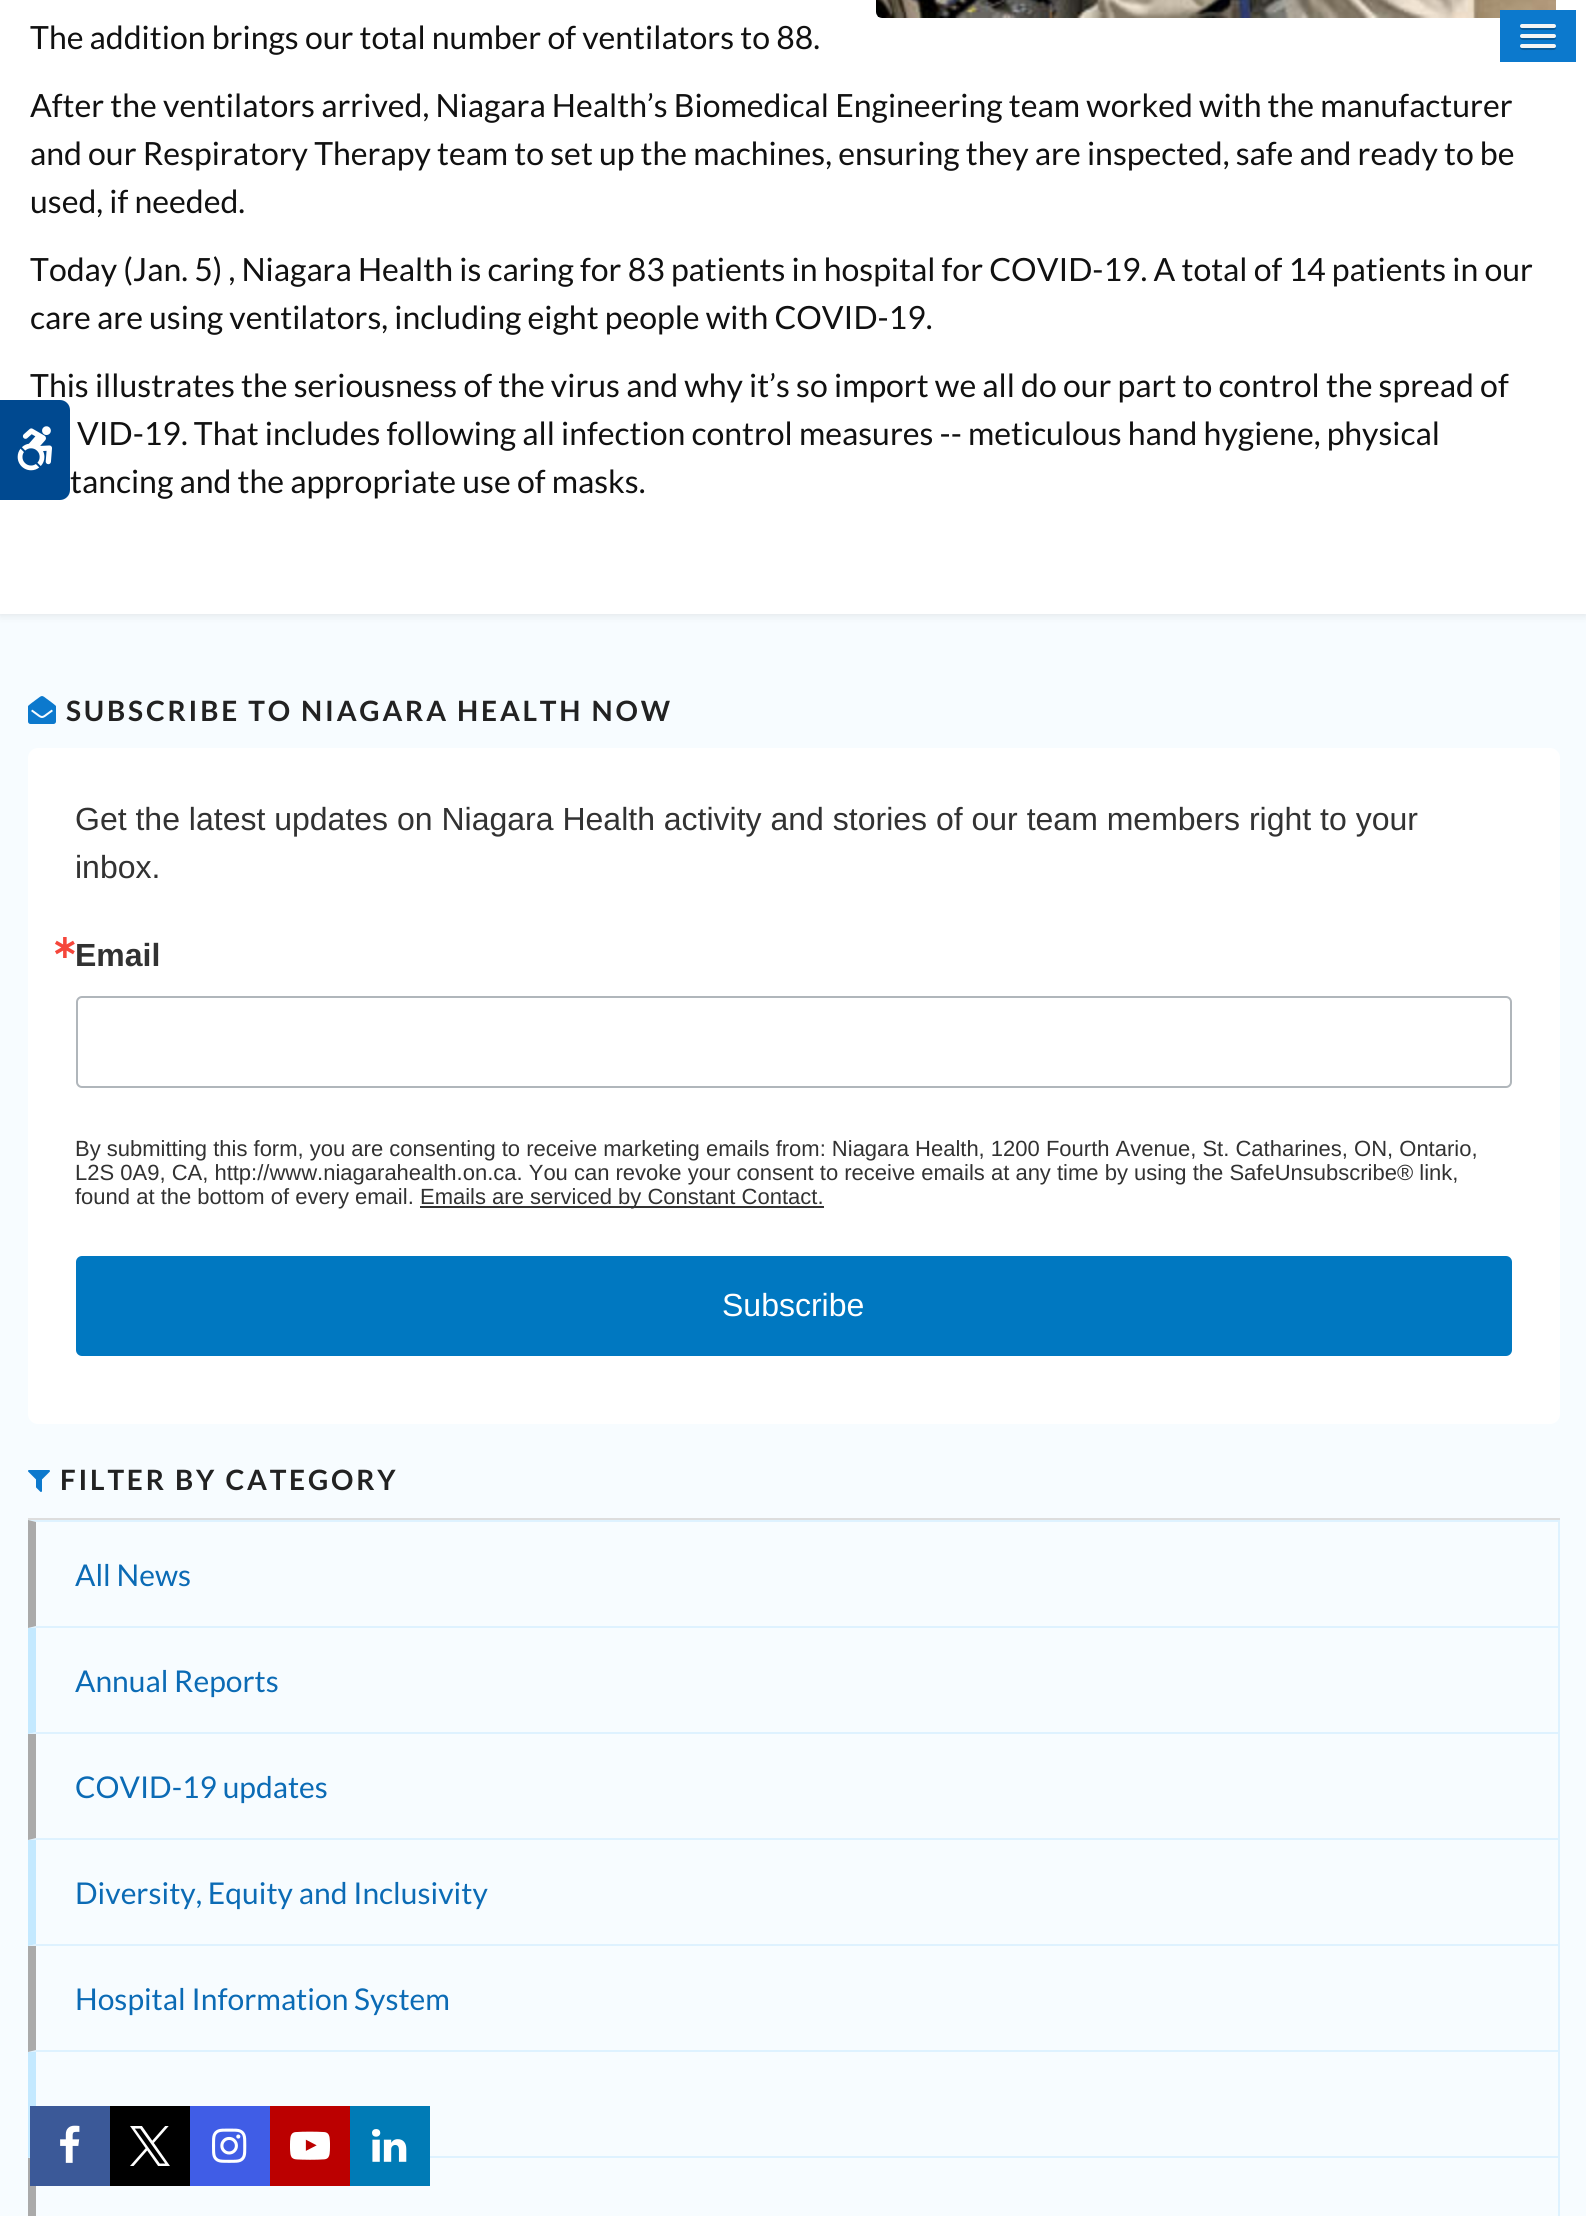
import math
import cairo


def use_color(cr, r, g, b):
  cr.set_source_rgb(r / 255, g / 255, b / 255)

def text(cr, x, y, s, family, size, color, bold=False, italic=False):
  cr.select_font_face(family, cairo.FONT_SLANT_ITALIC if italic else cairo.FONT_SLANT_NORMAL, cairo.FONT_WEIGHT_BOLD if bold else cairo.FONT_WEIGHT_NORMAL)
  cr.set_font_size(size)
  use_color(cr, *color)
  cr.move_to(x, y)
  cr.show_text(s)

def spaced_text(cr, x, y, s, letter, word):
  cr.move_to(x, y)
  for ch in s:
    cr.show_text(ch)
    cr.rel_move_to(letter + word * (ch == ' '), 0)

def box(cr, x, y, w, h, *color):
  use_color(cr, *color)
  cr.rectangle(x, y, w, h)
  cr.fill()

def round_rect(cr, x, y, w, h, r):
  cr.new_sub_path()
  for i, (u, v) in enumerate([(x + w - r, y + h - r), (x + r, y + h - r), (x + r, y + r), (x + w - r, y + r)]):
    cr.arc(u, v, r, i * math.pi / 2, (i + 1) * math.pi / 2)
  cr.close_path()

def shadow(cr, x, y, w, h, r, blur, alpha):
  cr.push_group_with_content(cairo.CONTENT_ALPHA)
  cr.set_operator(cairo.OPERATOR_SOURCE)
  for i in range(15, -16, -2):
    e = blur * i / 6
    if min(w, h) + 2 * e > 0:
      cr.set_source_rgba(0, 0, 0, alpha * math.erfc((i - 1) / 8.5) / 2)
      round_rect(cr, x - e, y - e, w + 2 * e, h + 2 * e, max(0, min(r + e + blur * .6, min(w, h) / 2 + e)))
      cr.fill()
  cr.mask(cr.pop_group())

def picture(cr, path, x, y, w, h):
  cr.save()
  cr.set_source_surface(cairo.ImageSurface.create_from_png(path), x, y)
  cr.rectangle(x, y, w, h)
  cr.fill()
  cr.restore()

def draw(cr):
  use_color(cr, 247, 252, 255)
  cr.paint()
  use_color(cr, 51, 51, 51)
  shadow(cr, 0, -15, 1586, 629, 0, 5, 0.15)
  box(cr, 0, 0, 1586, 614, 255, 255, 255)
  picture(cr, "img_01.png", 876, 0, 680, 18)
  picture(cr, "img_02.png", 28, 696, 28, 28)
  round_rect(cr, 28, 748, 1532, 676, 10)
  cr.fill()
  round_rect(cr, 77, 997, 1434, 90, 5)
  use_color(cr, 176, 182, 187)
  cr.stroke()
  box(cr, 420, 1206, 404, 2, 50, 50, 50)
  use_color(cr, 0, 120, 193)
  round_rect(cr, 77, 1257, 1434, 98, 5)
  cr.fill_preserve()
  cr.stroke()
  picture(cr, "img_03.png", 28, 1470, 22, 22)
  box(cr, 28, 1518, 1532, 2, 221, 221, 221)
  use_color(cr, 222, 242, 255)
  cr.new_path()
  cr.move_to(28, 1520)
  cr.line_to(1560, 1520)
  cr.line_to(1558, 1522)
  cr.line_to(36, 1522)
  cr.close_path()
  cr.fill()
  box(cr, 1558, 1520, 2, 696, 222, 242, 255)
  cr.new_path()
  cr.move_to(1560, 1628)
  cr.line_to(28, 1628)
  cr.line_to(36, 1626)
  cr.line_to(1558, 1626)
  cr.close_path()
  cr.fill()
  use_color(cr, 170, 170, 170)
  cr.new_path()
  cr.move_to(28, 1628)
  cr.line_to(28, 1520)
  cr.line_to(36, 1522)
  cr.line_to(36, 1626)
  cr.close_path()
  cr.fill()
  use_color(cr, 222, 242, 255)
  cr.new_path()
  cr.move_to(1560, 1734)
  cr.line_to(28, 1734)
  cr.line_to(36, 1732)
  cr.line_to(1558, 1732)
  cr.close_path()
  cr.fill()
  use_color(cr, 196, 233, 255)
  cr.new_path()
  cr.move_to(28, 1734)
  cr.line_to(28, 1628)
  cr.line_to(36, 1628)
  cr.line_to(36, 1732)
  cr.close_path()
  cr.fill()
  use_color(cr, 222, 242, 255)
  cr.new_path()
  cr.move_to(1560, 1840)
  cr.line_to(28, 1840)
  cr.line_to(36, 1838)
  cr.line_to(1558, 1838)
  cr.close_path()
  cr.fill()
  use_color(cr, 170, 170, 170)
  cr.new_path()
  cr.move_to(28, 1840)
  cr.line_to(28, 1734)
  cr.line_to(36, 1734)
  cr.line_to(36, 1838)
  cr.close_path()
  cr.fill()
  use_color(cr, 222, 242, 255)
  cr.new_path()
  cr.move_to(1560, 1946)
  cr.line_to(28, 1946)
  cr.line_to(36, 1944)
  cr.line_to(1558, 1944)
  cr.close_path()
  cr.fill()
  use_color(cr, 196, 233, 255)
  cr.new_path()
  cr.move_to(28, 1946)
  cr.line_to(28, 1840)
  cr.line_to(36, 1840)
  cr.line_to(36, 1944)
  cr.close_path()
  cr.fill()
  use_color(cr, 222, 242, 255)
  cr.new_path()
  cr.move_to(1560, 2052)
  cr.line_to(28, 2052)
  cr.line_to(36, 2050)
  cr.line_to(1558, 2050)
  cr.close_path()
  cr.fill()
  use_color(cr, 170, 170, 170)
  cr.new_path()
  cr.move_to(28, 2052)
  cr.line_to(28, 1946)
  cr.line_to(36, 1946)
  cr.line_to(36, 2050)
  cr.close_path()
  cr.fill()
  use_color(cr, 222, 242, 255)
  cr.new_path()
  cr.move_to(1560, 2158)
  cr.line_to(28, 2158)
  cr.line_to(36, 2156)
  cr.line_to(1558, 2156)
  cr.close_path()
  cr.fill()
  use_color(cr, 196, 233, 255)
  cr.new_path()
  cr.move_to(28, 2158)
  cr.line_to(28, 2052)
  cr.line_to(36, 2052)
  cr.line_to(36, 2156)
  cr.close_path()
  cr.fill()
  use_color(cr, 170, 170, 170)
  cr.new_path()
  cr.move_to(28, 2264)
  cr.line_to(28, 2158)
  cr.line_to(36, 2158)
  cr.line_to(36, 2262)
  cr.close_path()
  cr.fill()
  box(cr, 1500, 10, 76, 52, 12, 121, 205)
  use_color(cr, 9, 91, 154)
  cr.new_path()
  cr.move_to(1520.5, 27)
  cr.curve_to(1518, 31, 1527, 30, 1527.5, 30)
  cr.line_to(1548.5, 30)
  cr.curve_to(1549, 30, 1558, 31, 1555.5, 27)
  cr.curve_to(1555.5, 27.5, 1554.5, 28, 1554, 28)
  cr.line_to(1522, 28)
  cr.curve_to(1521.5, 28, 1520.5, 27.5, 1520.5, 27)
  cr.close_path()
  cr.fill()
  use_color(cr, 245, 245, 245)
  round_rect(cr, 1520, 24, 36, 4, 2)
  cr.fill()
  use_color(cr, 9, 91, 154)
  cr.new_path()
  cr.move_to(1520.5, 37)
  cr.curve_to(1518, 41, 1527, 40, 1527.5, 40)
  cr.line_to(1548.5, 40)
  cr.curve_to(1549, 40, 1558, 41, 1555.5, 37)
  cr.curve_to(1555.5, 37.5, 1554.5, 38, 1554, 38)
  cr.line_to(1522, 38)
  cr.curve_to(1521.5, 38, 1520.5, 37.5, 1520.5, 37)
  cr.close_path()
  cr.fill()
  use_color(cr, 245, 245, 245)
  round_rect(cr, 1520, 34, 36, 4, 2)
  cr.fill()
  use_color(cr, 9, 91, 154)
  cr.new_path()
  cr.move_to(1520.5, 47)
  cr.curve_to(1518, 51, 1527, 50, 1527.5, 50)
  cr.line_to(1548.5, 50)
  cr.curve_to(1549, 50, 1558, 51, 1555.5, 47)
  cr.curve_to(1555.5, 47.5, 1554.5, 48, 1554, 48)
  cr.line_to(1522, 48)
  cr.curve_to(1521.5, 48, 1520.5, 47.5, 1520.5, 47)
  cr.close_path()
  cr.fill()
  use_color(cr, 245, 245, 245)
  round_rect(cr, 1520, 44, 36, 4, 2)
  cr.fill()
  box(cr, 30, 2106, 80, 80, 59, 89, 152)
  picture(cr, "img_05.png", 60, 2125, 20, 38)
  box(cr, 110, 2106, 80, 80, 0, 0, 0)
  picture(cr, "img_06.png", 130, 2126, 40, 40)
  box(cr, 190, 2106, 80, 80, 64, 93, 230)
  picture(cr, "img_07.png", 212, 2128, 35, 35)
  box(cr, 270, 2106, 80, 80, 187, 0, 0)
  picture(cr, "img_08.png", 290, 2131, 40, 29)
  box(cr, 350, 2106, 80, 80, 0, 123, 182)
  picture(cr, "img_09.png", 372, 2129, 35, 33)
  text(cr, 30, 49, "The addition brings our total number of ventilators to 88.", "Lato", 32, (17, 17, 17))
  text(cr, 30, 117, "After the ventilators arrived, Niagara Health’s Biomedical Engineering team worked with the manufacturer", "Lato", 32, (17, 17, 17))
  text(cr, 30, 165, "and our Respiratory Therapy team to set up the machines, ensuring they are inspected, safe and ready to be", "Lato", 32, (17, 17, 17))
  text(cr, 30, 213, "used, if needed.", "Lato", 32, (17, 17, 17))
  text(cr, 30, 281, "Today (Jan. 5) , Niagara Health is caring for 83 patients in hospital for COVID-19. A total of 14 patients in our", "Lato", 32, (17, 17, 17))
  text(cr, 30, 329, "care are using ventilators, including eight people with COVID-19.", "Lato", 32, (17, 17, 17))
  text(cr, 30, 397, "This illustrates the seriousness of the virus and why it’s so import we all do our part to control the spread of", "Lato", 32, (17, 17, 17))
  text(cr, 77, 445, "VID-19. That includes following all infection control measures -- meticulous hand hygiene, physical", "Lato", 32, (17, 17, 17))
  text(cr, 70, 493, "tancing and the appropriate use of masks.", "Lato", 32, (17, 17, 17))
  cr.select_font_face("Lato", cairo.FONT_SLANT_NORMAL, cairo.FONT_WEIGHT_BOLD)
  cr.set_font_size(28)
  use_color(cr, 34, 34, 34)
  spaced_text(cr, 66, 721, "SUBSCRIBE TO NIAGARA HEALTH NOW", 2.8, 0)
  text(cr, 75, 830, "Get the latest updates on Niagara Health activity and stories of our team members right to your", "Liberation Sans", 32, (50, 50, 50))
  text(cr, 75, 878, "inbox.", "Liberation Sans", 32, (50, 50, 50))
  text(cr, 51, 958, "∗", "DejaVu Sans", 32, (245, 70, 59), bold=True)
  text(cr, 75, 966, "Email", "Liberation Sans", 32, (50, 50, 50), bold=True)
  text(cr, 75, 1156, "By submitting this form, you are consenting to receive marketing emails from: Niagara Health, 1200 Fourth Avenue, St. Catharines, ON, Ontario,", "Liberation Sans", 22, (50, 50, 50))
  text(cr, 75, 1180, "L2S 0A9, CA, http://www.niagarahealth.on.ca. You can revoke your consent to receive emails at any time by using the SafeUnsubscribe® link,", "Liberation Sans", 22, (50, 50, 50))
  text(cr, 75, 1204, "found at the bottom of every email.", "Liberation Sans", 22, (50, 50, 50))
  text(cr, 420, 1204, "Emails are serviced by Constant Contact.", "Liberation Sans", 22, (50, 50, 50))
  text(cr, 722, 1316, "Subscribe", "Liberation Sans", 32, (255, 255, 255))
  cr.select_font_face("Lato", cairo.FONT_SLANT_NORMAL, cairo.FONT_WEIGHT_BOLD)
  cr.set_font_size(28)
  use_color(cr, 34, 34, 34)
  spaced_text(cr, 60, 1490, "FILTER BY CATEGORY", 2.8, 0)
  text(cr, 75, 1586, "All News", "Lato", 30, (11, 107, 181))
  text(cr, 75, 1692, "Annual Reports", "Lato", 30, (11, 107, 181))
  text(cr, 75, 1798, "COVID-19 updates", "Lato", 30, (11, 107, 181))
  text(cr, 75, 1904, "Diversity, Equity and Inclusivity", "Lato", 30, (11, 107, 181))
  text(cr, 75, 2010, "Hospital Information System", "Lato", 30, (11, 107, 181))
  use_color(cr, 0, 73, 144)
  cr.new_path()
  cr.move_to(0, 400)
  cr.line_to(60, 400)
  cr.curve_to(65.5, 400, 70, 404.5, 70, 410)
  cr.line_to(70, 490)
  cr.curve_to(70, 495.5, 65.5, 500, 60, 500)
  cr.line_to(0, 500)
  cr.close_path()
  cr.fill()
  picture(cr, "img_04.png", 17, 426, 35, 45)


surface = cairo.ImageSurface(cairo.FORMAT_RGB24, 1586, 2216)
cr = cairo.Context(surface)
options = cairo.FontOptions()
options.set_hint_metrics(cairo.HINT_METRICS_OFF)
options.set_hint_style(cairo.HINT_STYLE_NONE)
cr.set_font_options(options)
cr.set_miter_limit(4)
draw(cr)
surface.write_to_png("out.png")
